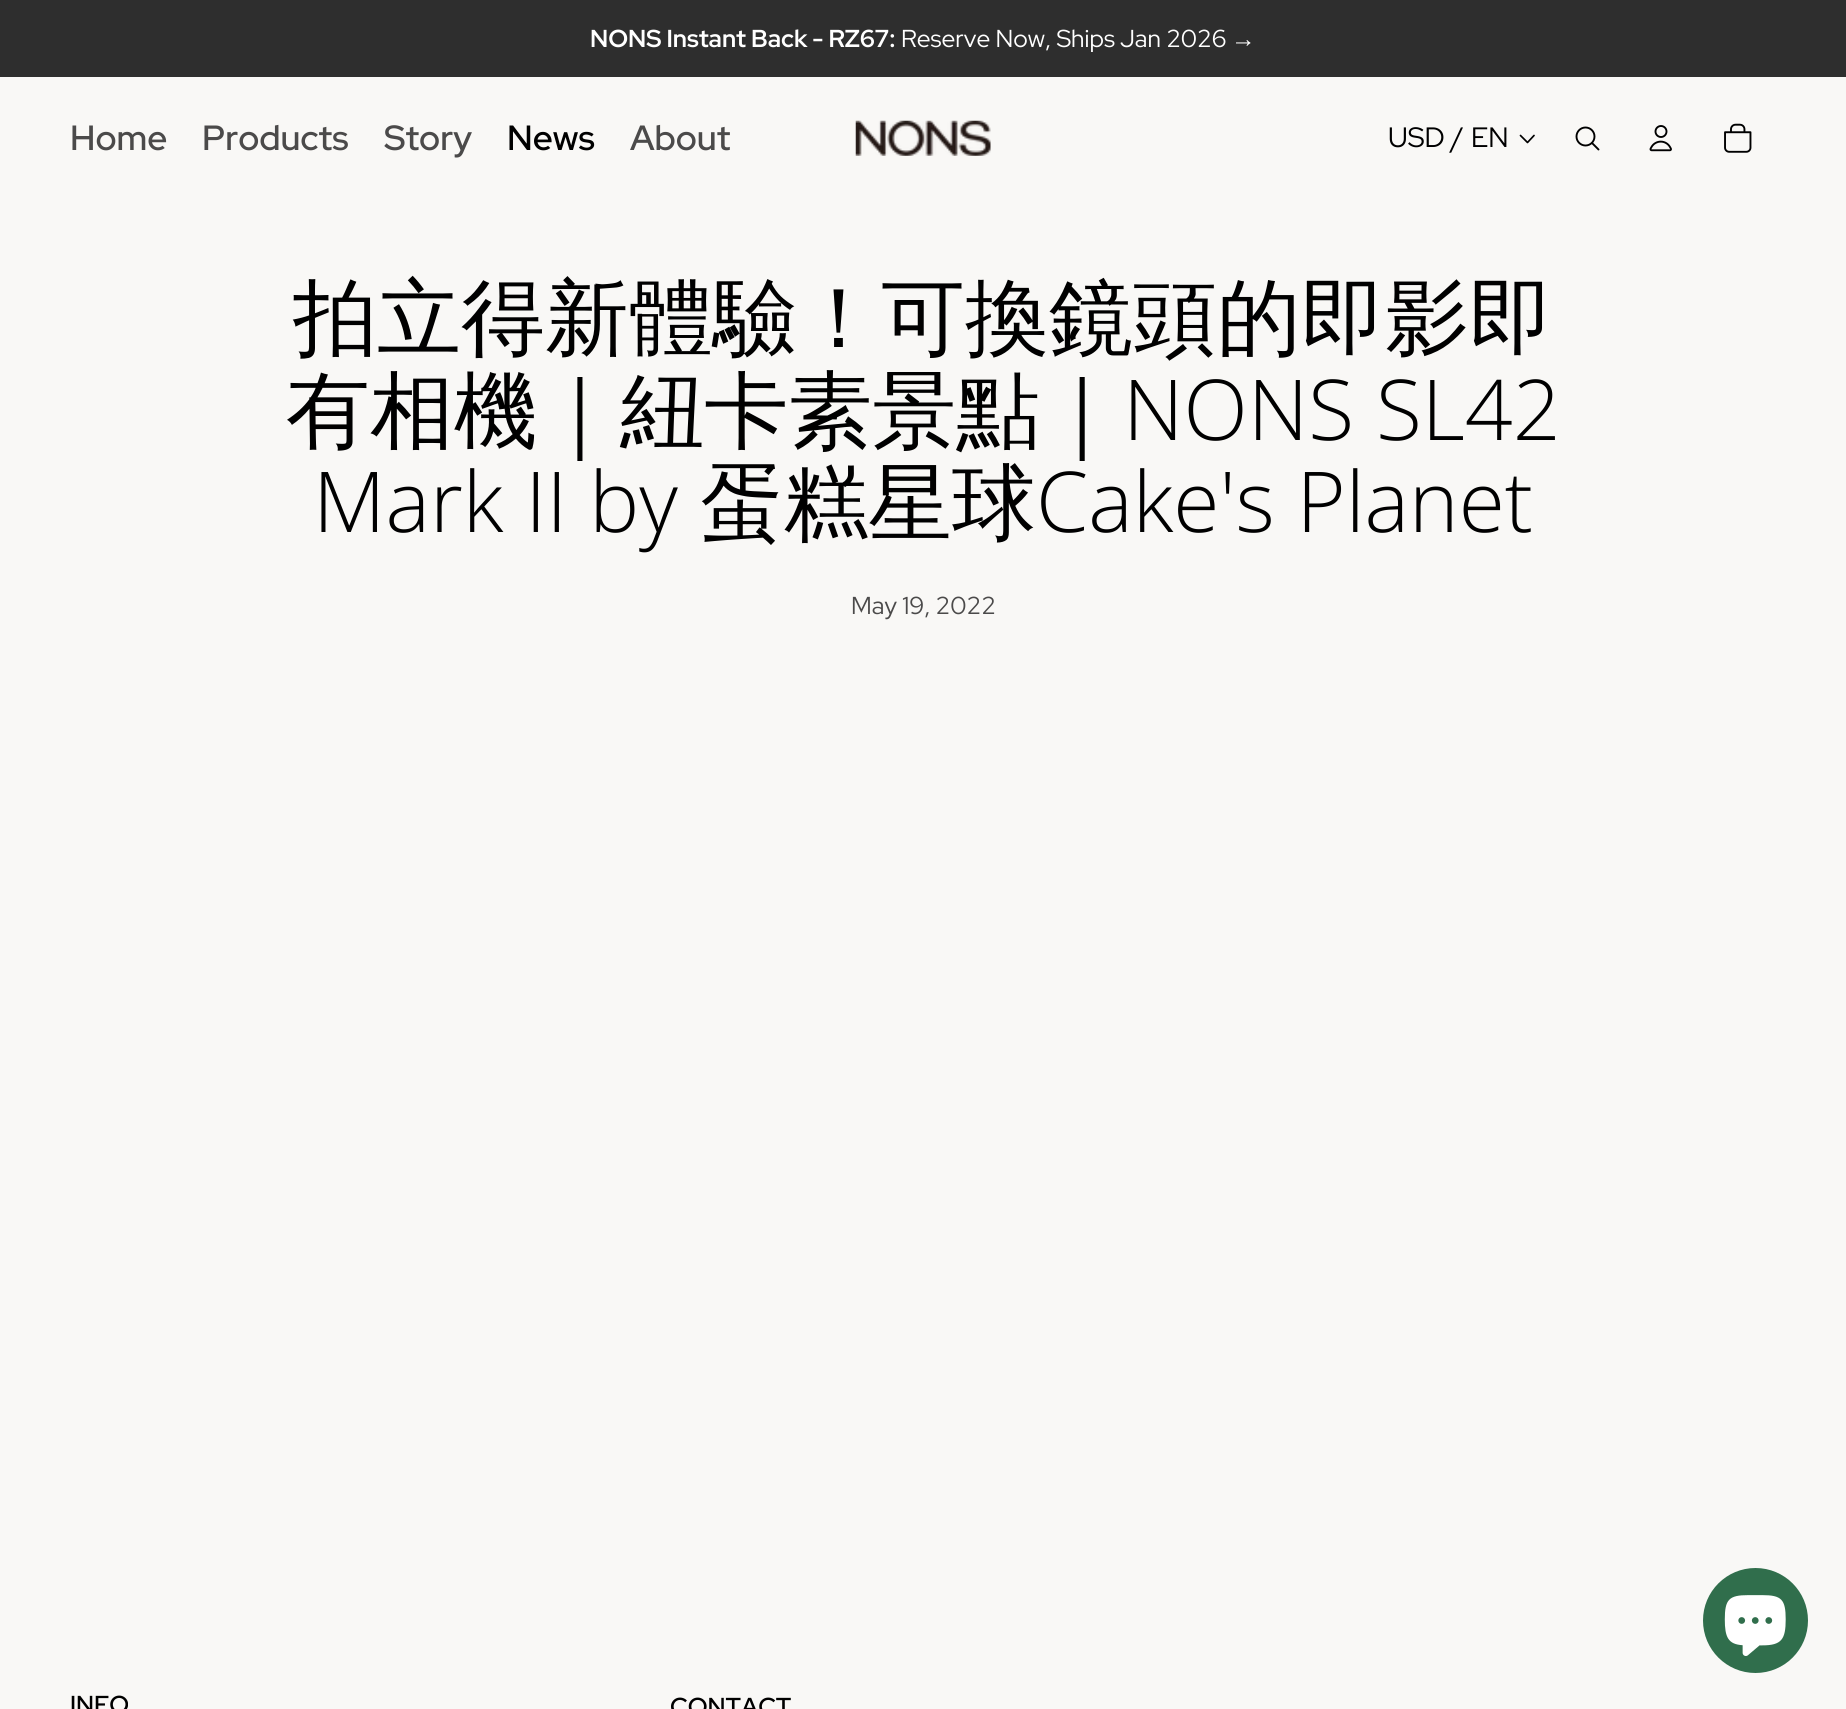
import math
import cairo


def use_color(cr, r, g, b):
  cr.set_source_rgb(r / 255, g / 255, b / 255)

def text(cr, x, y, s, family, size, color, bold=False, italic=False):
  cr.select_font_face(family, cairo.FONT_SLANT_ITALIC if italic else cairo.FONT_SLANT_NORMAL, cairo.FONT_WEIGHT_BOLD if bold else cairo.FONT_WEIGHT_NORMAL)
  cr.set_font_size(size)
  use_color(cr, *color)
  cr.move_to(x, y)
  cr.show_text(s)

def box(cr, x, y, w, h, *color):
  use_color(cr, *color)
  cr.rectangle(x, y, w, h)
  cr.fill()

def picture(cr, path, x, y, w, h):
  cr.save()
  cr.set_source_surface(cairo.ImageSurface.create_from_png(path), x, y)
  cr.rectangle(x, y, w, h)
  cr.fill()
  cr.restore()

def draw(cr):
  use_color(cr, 249, 248, 246)
  cr.paint()
  box(cr, 0, 0, 1846, 77, 46, 46, 46)
  picture(cr, "img_01.png", 855, 120, 136, 36)
  cr.new_path()
  cr.move_to(1534, 135.5)
  cr.line_to(1527.5, 142.5)
  cr.line_to(1520.5, 135.5)
  use_color(cr, 0, 0, 0)
  cr.set_line_width(1.7)
  cr.set_line_cap(cairo.LINE_CAP_ROUND)
  cr.set_line_join(cairo.LINE_JOIN_ROUND)
  cr.stroke()
  cr.arc(1585.5, 136.5, 9, 0, 2 * math.pi)
  cr.set_line_width(1.9)
  cr.set_line_cap(cairo.LINE_CAP_BUTT)
  cr.set_line_join(cairo.LINE_JOIN_MITER)
  cr.stroke()
  cr.new_path()
  cr.move_to(1592, 143)
  cr.line_to(1598.5, 149.5)
  cr.set_line_cap(cairo.LINE_CAP_ROUND)
  cr.set_line_join(cairo.LINE_JOIN_ROUND)
  cr.stroke()
  picture(cr, "img_02.png", 1649, 125, 23, 27)
  picture(cr, "img_03.png", 1724, 123, 28, 30)
  use_color(cr, 48, 110, 76)
  cr.arc(1755.5, 1620.5, 52.5, 0, 2 * math.pi)
  cr.fill()
  picture(cr, "img_04.png", 1724, 1595, 62, 61)
  text(cr, 590, 47, "NONS Instant Back - RZ67:", "Red Hat Display", 24.5, (255, 255, 255), bold=True)
  text(cr, 901, 47, "Reserve Now, Ships Jan 2026", "Red Hat Display", 24.5, (255, 255, 255))
  text(cr, 1231, 47, "→", "Liberation Sans", 24.5, (255, 255, 255))
  text(cr, 70, 150, "Home", "Red Hat Display SemiBold", 35, (75, 74, 74))
  text(cr, 202, 150, "Products", "Red Hat Display SemiBold", 35, (75, 74, 74))
  text(cr, 384, 150, "Story", "Red Hat Display SemiBold", 35, (75, 74, 74))
  text(cr, 507, 150, "News", "Red Hat Display SemiBold", 35, (0, 0, 0))
  text(cr, 630, 150, "About", "Red Hat Display SemiBold", 35, (75, 74, 74))
  text(cr, 1388, 147, "USD", "Red Hat Display", 28, (0, 0, 0))
  text(cr, 1451, 147, "/", "Red Hat Display", 28, (0, 0, 0))
  text(cr, 1471, 147, "EN", "Red Hat Display", 28, (0, 0, 0))
  text(cr, 293, 347, "拍立得新體驗！可換鏡頭的即影即", "WenQuanYi Zen Hei Medium", 84, (0, 0, 0))
  text(cr, 286, 440, "有相機｜紐卡素景點｜", "WenQuanYi Zen Hei Medium", 84, (0, 0, 0))
  text(cr, 1123, 440, "NONS SL42", "Open Sans Light", 84, (0, 0, 0))
  text(cr, 313, 532, "Mark II by", "Open Sans Light", 84, (0, 0, 0))
  text(cr, 700, 532, "蛋糕星球", "WenQuanYi Zen Hei Medium", 84, (0, 0, 0))
  text(cr, 1036, 532, "Cake's Planet", "Open Sans Light", 84, (0, 0, 0))
  text(cr, 851, 614, "May 19, 2022", "Red Hat Display", 24.5, (75, 74, 74))
  text(cr, 70, 1713, "INFO", "Red Hat Display SemiBold", 24.5, (0, 0, 0))
  text(cr, 670, 1715, "CONTACT", "Red Hat Display SemiBold", 24.5, (0, 0, 0))


surface = cairo.ImageSurface(cairo.FORMAT_RGB24, 1846, 1709)
cr = cairo.Context(surface)
options = cairo.FontOptions()
options.set_hint_metrics(cairo.HINT_METRICS_OFF)
options.set_hint_style(cairo.HINT_STYLE_NONE)
cr.set_font_options(options)
cr.set_miter_limit(4)
draw(cr)
surface.write_to_png("out.png")
